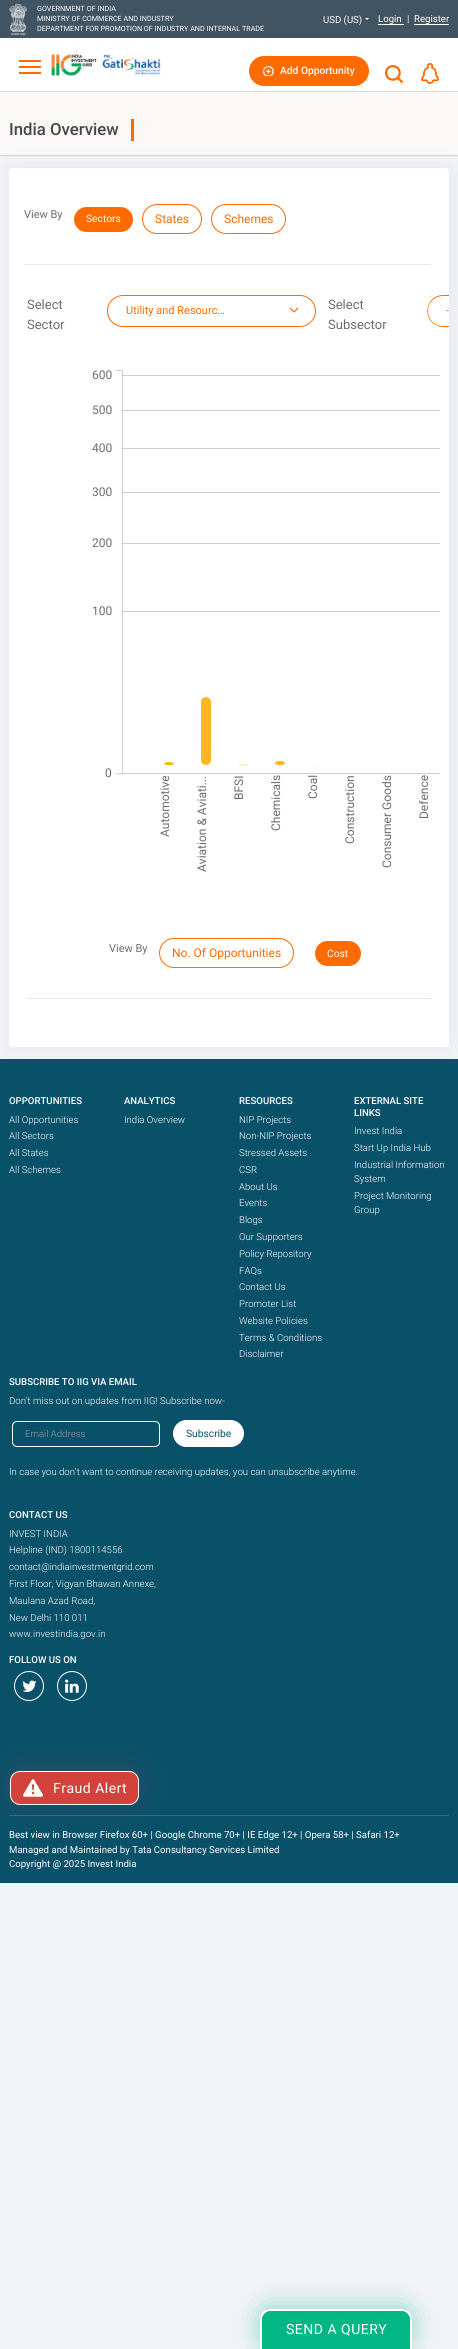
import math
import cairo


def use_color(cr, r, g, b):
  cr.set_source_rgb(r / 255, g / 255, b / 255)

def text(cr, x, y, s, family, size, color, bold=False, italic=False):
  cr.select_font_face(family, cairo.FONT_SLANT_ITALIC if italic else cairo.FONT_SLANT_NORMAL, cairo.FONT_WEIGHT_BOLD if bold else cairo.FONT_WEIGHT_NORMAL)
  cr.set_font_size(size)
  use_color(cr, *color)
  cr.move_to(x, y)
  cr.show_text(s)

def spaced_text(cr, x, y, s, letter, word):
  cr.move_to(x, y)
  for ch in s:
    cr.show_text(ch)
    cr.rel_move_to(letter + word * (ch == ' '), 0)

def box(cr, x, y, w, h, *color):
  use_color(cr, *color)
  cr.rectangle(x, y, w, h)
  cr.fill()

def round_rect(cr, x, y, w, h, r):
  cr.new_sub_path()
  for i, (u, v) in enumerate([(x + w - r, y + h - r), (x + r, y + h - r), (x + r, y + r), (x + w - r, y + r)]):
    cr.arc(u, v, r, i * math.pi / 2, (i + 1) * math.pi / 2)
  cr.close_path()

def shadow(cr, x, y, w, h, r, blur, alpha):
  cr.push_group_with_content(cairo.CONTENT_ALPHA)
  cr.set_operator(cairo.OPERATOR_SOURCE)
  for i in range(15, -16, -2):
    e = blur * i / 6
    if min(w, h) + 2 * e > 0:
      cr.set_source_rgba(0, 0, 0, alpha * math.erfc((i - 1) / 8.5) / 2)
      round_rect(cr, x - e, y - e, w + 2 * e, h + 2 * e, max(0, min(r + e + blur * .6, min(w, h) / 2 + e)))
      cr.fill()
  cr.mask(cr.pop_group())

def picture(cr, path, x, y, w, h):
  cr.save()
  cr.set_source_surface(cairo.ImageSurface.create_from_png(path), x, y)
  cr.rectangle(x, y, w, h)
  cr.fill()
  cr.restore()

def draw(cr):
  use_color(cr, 242, 243, 247)
  cr.paint()
  box(cr, 0, 0, 458, 38, 65, 84, 100)
  picture(cr, "img_01.png", 9, 4, 18, 31)
  use_color(cr, 255, 255, 255)
  cr.new_path()
  cr.move_to(365, 18)
  cr.line_to(369, 18)
  cr.line_to(367, 20)
  cr.close_path()
  cr.fill()
  box(cr, 378, 24, 26, 1, 255, 255, 255)
  box(cr, 414, 24, 35, 1, 255, 255, 255)
  box(cr, 0, 38, 458, 53, 255, 255, 255)
  box(cr, 19, 60, 22, 2, 255, 107, 0)
  box(cr, 19, 66, 22, 2, 255, 107, 0)
  box(cr, 19, 72, 22, 2, 255, 107, 0)
  picture(cr, "img_02.png", 51, 54, 46, 22)
  picture(cr, "img_03.png", 102, 54, 59, 21)
  round_rect(cr, 249, 56, 120, 30, 15)
  cr.fill()
  picture(cr, "img_04.png", 263, 66, 11, 10)
  picture(cr, "img_05.png", 385, 65, 18, 18)
  picture(cr, "img_06.png", 421, 63, 18, 21)
  box(cr, 0, 92, 458, 63, 250, 247, 247)
  box(cr, 0, 91, 458, 1, 213, 213, 213)
  box(cr, 0, 155, 458, 1, 213, 213, 213)
  box(cr, 131, 119, 3, 22, 255, 107, 0)
  use_color(cr, 0, 0, 0)
  shadow(cr, 9, 168, 440, 879, 4, 13, 0.05)
  use_color(cr, 255, 255, 255)
  round_rect(cr, 9, 168, 440, 879, 4)
  cr.fill()
  cr.new_path()
  cr.move_to(13, 168)
  cr.line_to(445, 168)
  cr.curve_to(447, 168, 449, 170, 449, 172)
  cr.line_to(449, 277)
  cr.line_to(9, 277)
  cr.line_to(9, 172)
  cr.curve_to(9, 170, 11, 168, 13, 168)
  cr.close_path()
  cr.fill()
  use_color(cr, 255, 107, 0)
  round_rect(cr, 74, 207, 59, 25, 12.5)
  cr.fill()
  round_rect(cr, 142.5, 204.5, 59, 29, 14.5)
  cr.set_line_width(1)
  cr.stroke()
  round_rect(cr, 211.5, 204.5, 74, 29, 14.5)
  cr.stroke()
  box(cr, 24, 264, 407, 1, 230, 230, 230)
  round_rect(cr, 107.5, 295.5, 208, 31, 15.5)
  use_color(cr, 255, 107, 2)
  cr.stroke()
  picture(cr, "img_07.png", 289, 307, 10, 6)
  cr.new_path()
  cr.move_to(443, 295)
  cr.curve_to(426, 295, 421, 319, 437, 325.5)
  cr.curve_to(440.5, 327.5, 445, 327, 449, 327)
  cr.line_to(449, 326)
  cr.line_to(443, 326)
  cr.curve_to(434.5, 326, 428, 319.5, 428, 311)
  cr.curve_to(428, 302.5, 434.5, 296, 443, 296)
  cr.line_to(449, 296)
  cr.line_to(449, 295)
  cr.close_path()
  cr.fill()
  picture(cr, "img_08.png", 116, 370, 324, 405)
  round_rect(cr, 159.5, 938.5, 134, 29, 14.5)
  use_color(cr, 255, 107, 0)
  cr.stroke()
  round_rect(cr, 315, 941, 46, 25, 12.5)
  cr.fill()
  box(cr, 27, 998, 404, 1, 230, 230, 230)
  box(cr, 0, 1059, 458, 824, 9, 81, 105)
  round_rect(cr, 12.5, 1421.5, 147, 25, 4.5)
  use_color(cr, 255, 255, 255)
  cr.stroke()
  round_rect(cr, 173.5, 1420.5, 70, 26, 13)
  cr.fill_preserve()
  cr.stroke()
  cr.arc(29, 1686, 14.5, 0, 2 * math.pi)
  cr.stroke()
  picture(cr, "img_09.png", 22, 1680, 15, 12)
  cr.arc(72, 1686, 14.5, 0, 2 * math.pi)
  cr.stroke()
  picture(cr, "img_10.png", 65, 1679, 14, 14)
  box(cr, 9, 1815, 440, 1, 48, 109, 129)
  use_color(cr, 211, 67, 60)
  shadow(cr, 10, 1769, 129, 34, 10, 12.5, 0.2)
  use_color(cr, 211, 67, 60)
  round_rect(cr, 10.5, 1771.5, 128, 33, 9.5)
  cr.fill_preserve()
  use_color(cr, 255, 255, 255)
  cr.stroke()
  picture(cr, "img_11.png", 23, 1779, 20, 18)
  use_color(cr, 0, 183, 132)
  shadow(cr, 260, 2307, 152, 40, 10, 12.5, 0.43)
  use_color(cr, 0, 183, 132)
  cr.new_path()
  cr.move_to(270, 2309)
  cr.line_to(402, 2309)
  cr.curve_to(407.5, 2309, 412, 2313.5, 412, 2319)
  cr.line_to(412, 2349)
  cr.line_to(260, 2349)
  cr.line_to(260, 2319)
  cr.curve_to(260, 2313.5, 264.5, 2309, 270, 2309)
  cr.close_path()
  cr.fill()
  use_color(cr, 255, 255, 255)
  cr.set_fill_rule(cairo.FILL_RULE_EVEN_ODD)
  cr.new_path()
  cr.move_to(270, 2309)
  cr.line_to(402, 2309)
  cr.curve_to(408, 2309, 412, 2313, 412, 2319)
  cr.line_to(412, 2349)
  cr.line_to(260, 2349)
  cr.line_to(260, 2319)
  cr.curve_to(260, 2313, 264, 2309, 270, 2309)
  cr.close_path()
  cr.move_to(270, 2311)
  cr.line_to(402, 2311)
  cr.curve_to(406, 2311, 410, 2315, 410, 2319)
  cr.line_to(410, 2349)
  cr.line_to(262, 2349)
  cr.line_to(262, 2319)
  cr.curve_to(262, 2315, 266, 2311, 270, 2311)
  cr.close_path()
  cr.fill()
  text(cr, 37, 11, "GOVERNMENT OF INDIA", "Roboto", 7.2, (255, 255, 255))
  text(cr, 37, 21, "MINISTRY OF COMMERCE AND INDUSTRY", "Roboto", 7.2, (255, 255, 255))
  text(cr, 37, 31, "DEPARTMENT FOR PROMOTION OF INDUSTRY AND INTERNAL TRADE", "Roboto", 7.2, (255, 255, 255))
  text(cr, 323, 23, "USD (US)", "Roboto", 9.6, (255, 255, 255))
  text(cr, 378, 22, "Login", "Roboto", 9.6, (255, 255, 255))
  text(cr, 407, 22, "|", "Roboto", 9.6, (255, 255, 255))
  text(cr, 414, 22, "Register", "Roboto", 9.6, (255, 255, 255))
  text(cr, 280, 74, "Add Opportunity", "Roboto Medium", 10.25, (255, 255, 255))
  text(cr, 9, 135, "India Overview", "Roboto Medium", 16.75, (71, 71, 71))
  text(cr, 24, 218, "View By", "Roboto", 11, (108, 108, 108))
  text(cr, 86, 222, "Sectors", "Roboto", 10.25, (255, 255, 255))
  text(cr, 155, 223, "States", "Roboto", 12, (255, 107, 0))
  text(cr, 224, 223, "Schemes", "Roboto", 12, (255, 107, 0))
  text(cr, 27, 309, "Select", "Roboto", 13, (108, 108, 108))
  text(cr, 27, 329, "Sector", "Roboto", 13, (108, 108, 108))
  text(cr, 126, 314, "Utility and Resourc…", "Roboto", 11, (255, 107, 0))
  text(cr, 328, 309, "Select", "Roboto", 13, (108, 108, 108))
  text(cr, 328, 329, "Subsector", "Roboto", 13, (108, 108, 108))
  text(cr, 446, 314, "-", "Roboto", 11, (255, 107, 0))
  text(cr, 92, 379, "600", "Roboto", 12, (108, 108, 108))
  text(cr, 92, 414, "500", "Roboto", 12, (108, 108, 108))
  text(cr, 92, 452, "400", "Roboto", 12, (108, 108, 108))
  text(cr, 92, 496, "300", "Roboto", 12, (108, 108, 108))
  text(cr, 92, 547, "200", "Roboto", 12, (108, 108, 108))
  text(cr, 92, 615, "100", "Roboto", 12, (108, 108, 108))
  text(cr, 105, 777, "0", "Roboto", 12, (108, 108, 108))
  cr.save()
  cr.translate(169, 837)
  cr.rotate(-90 * math.pi / 180)
  text(cr, 0, 0, "Automotive", "Roboto", 12, (108, 108, 108))
  cr.restore()
  cr.save()
  cr.translate(206, 872)
  cr.rotate(-90 * math.pi / 180)
  text(cr, 0, 0, "Aviation & Aviati...", "Roboto", 12, (108, 108, 108))
  cr.restore()
  cr.save()
  cr.translate(243, 800)
  cr.rotate(-90 * math.pi / 180)
  text(cr, 0, 0, "BFSI", "Roboto", 12, (108, 108, 108))
  cr.restore()
  cr.save()
  cr.translate(280, 831)
  cr.rotate(-90 * math.pi / 180)
  text(cr, 0, 0, "Chemicals", "Roboto", 12, (108, 108, 108))
  cr.restore()
  cr.save()
  cr.translate(317, 799)
  cr.rotate(-90 * math.pi / 180)
  text(cr, 0, 0, "Coal", "Roboto", 12, (108, 108, 108))
  cr.restore()
  cr.save()
  cr.translate(354, 844)
  cr.rotate(-90 * math.pi / 180)
  text(cr, 0, 0, "Construction", "Roboto", 12, (108, 108, 108))
  cr.restore()
  cr.save()
  cr.translate(391, 868)
  cr.rotate(-90 * math.pi / 180)
  text(cr, 0, 0, "Consumer Goods", "Roboto", 12, (108, 108, 108))
  cr.restore()
  cr.save()
  cr.translate(428, 819)
  cr.rotate(-90 * math.pi / 180)
  text(cr, 0, 0, "Defence", "Roboto", 12, (108, 108, 108))
  cr.restore()
  text(cr, 109, 952, "View By", "Roboto", 11, (108, 108, 108))
  text(cr, 172, 957, "No. Of Opportunities", "Roboto", 12, (255, 107, 0))
  text(cr, 327, 957, "Cost", "Roboto", 10.25, (255, 255, 255))
  text(cr, 9, 1104, "OPPORTUNITIES", "Roboto Medium", 9.6, (255, 255, 255))
  text(cr, 9, 1123, "All Opportunities", "Roboto Light", 9.6, (255, 255, 255))
  text(cr, 9, 1139, "All Sectors", "Roboto Light", 9.6, (255, 255, 255))
  text(cr, 9, 1156, "All States", "Roboto Light", 9.6, (255, 255, 255))
  text(cr, 9, 1173, "All Schemes", "Roboto Light", 9.6, (255, 255, 255))
  text(cr, 124, 1104, "ANALYTICS", "Roboto Medium", 9.6, (255, 255, 255))
  text(cr, 124, 1123, "India Overview", "Roboto Light", 9.6, (255, 255, 255))
  text(cr, 239, 1104, "RESOURCES", "Roboto Medium", 9.6, (255, 255, 255))
  text(cr, 239, 1123, "NIP Projects", "Roboto Light", 9.6, (255, 255, 255))
  text(cr, 239, 1139, "Non-NIP Projects", "Roboto Light", 9.6, (255, 255, 255))
  text(cr, 239, 1156, "Stressed Assets", "Roboto Light", 9.6, (255, 255, 255))
  text(cr, 239, 1173, "CSR", "Roboto Light", 9.6, (255, 255, 255))
  text(cr, 239, 1190, "About Us", "Roboto Light", 9.6, (255, 255, 255))
  text(cr, 239, 1206, "Events", "Roboto Light", 9.6, (255, 255, 255))
  text(cr, 239, 1223, "Blogs", "Roboto Light", 9.6, (255, 255, 255))
  text(cr, 239, 1240, "Our Supporters", "Roboto Light", 9.6, (255, 255, 255))
  text(cr, 239, 1257, "Policy Repository", "Roboto Light", 9.6, (255, 255, 255))
  text(cr, 239, 1274, "FAQs", "Roboto Light", 9.6, (255, 255, 255))
  text(cr, 239, 1290, "Contact Us", "Roboto Light", 9.6, (255, 255, 255))
  text(cr, 239, 1307, "Promoter List", "Roboto Light", 9.6, (255, 255, 255))
  text(cr, 239, 1324, "Website Policies", "Roboto Light", 9.6, (255, 255, 255))
  text(cr, 239, 1341, "Terms & Conditions", "Roboto Light", 9.6, (255, 255, 255))
  text(cr, 239, 1357, "Disclaimer", "Roboto Light", 9.6, (255, 255, 255))
  text(cr, 354, 1104, "EXTERNAL SITE", "Roboto Medium", 9.6, (255, 255, 255))
  text(cr, 354, 1116, "LINKS", "Roboto Medium", 9.6, (255, 255, 255))
  text(cr, 354, 1134, "Invest India", "Roboto Light", 9.6, (255, 255, 255))
  text(cr, 354, 1151, "Start Up India Hub", "Roboto Light", 9.6, (255, 255, 255))
  text(cr, 354, 1168, "Industrial Information", "Roboto Light", 9.6, (255, 255, 255))
  text(cr, 354, 1182, "System", "Roboto Light", 9.6, (255, 255, 255))
  text(cr, 354, 1199, "Project Monitoring", "Roboto Light", 9.6, (255, 255, 255))
  text(cr, 354, 1213, "Group", "Roboto Light", 9.6, (255, 255, 255))
  text(cr, 9, 1385, "SUBSCRIBE TO IIG VIA EMAIL", "Roboto Medium", 9.6, (255, 255, 255))
  text(cr, 9, 1404, "Don't miss out on updates from IIG! Subscribe now-", "Roboto Light", 9.6, (255, 255, 255))
  text(cr, 25, 1437, "Email Address", "Roboto Light", 9.6, (155, 155, 157))
  text(cr, 186, 1437, "Subscribe", "Roboto", 10.25, (9, 81, 105))
  text(cr, 9, 1475, "In case you don't want to continue receiving updates, you can unsubscribe anytime.", "Roboto Light", 9.6, (255, 255, 255))
  text(cr, 9, 1518, "CONTACT US", "Roboto Medium", 9.6, (255, 255, 255))
  text(cr, 9, 1537, "INVEST INDIA", "Roboto Light", 9.6, (255, 255, 255))
  text(cr, 9, 1553, "Helpline (IND) 1800114556", "Roboto Light", 9.6, (255, 255, 255))
  text(cr, 9, 1570, "contact@indiainvestmentgrid.com", "Roboto Light", 9.6, (255, 255, 255))
  text(cr, 9, 1587, "First Floor, Vigyan Bhawan Annexe,", "Roboto Light", 9.6, (255, 255, 255))
  text(cr, 9, 1604, "Maulana Azad Road,", "Roboto Light", 9.6, (255, 255, 255))
  text(cr, 9, 1621, "New Delhi 110 011", "Roboto Light", 9.6, (255, 255, 255))
  text(cr, 9, 1637, "www.investindia.gov.in", "Roboto Light", 9.6, (255, 255, 255))
  text(cr, 9, 1663, "FOLLOW US ON", "Roboto Medium", 9.6, (255, 255, 255))
  cr.select_font_face("Roboto")
  cr.set_font_size(14)
  spaced_text(cr, 53, 1793, "Fraud Alert", 0.5, 0)
  text(cr, 9, 1838, "Best view in Browser Firefox 60+ | Google Chrome 70+ | IE Edge 12+ | Opera 58+ | Safari 12+", "Roboto", 9.6, (255, 255, 255))
  text(cr, 9, 1853, "Managed and Maintained by Tata Consultancy Services Limited", "Roboto", 9.6, (255, 255, 255))
  text(cr, 9, 1867, "Copyright @ 2025 Invest India", "Roboto", 9.6, (255, 255, 255))
  cr.set_font_size(14)
  spaced_text(cr, 286, 2334, "SEND A QUERY", 0.5, 0)


surface = cairo.ImageSurface(cairo.FORMAT_RGB24, 458, 2349)
cr = cairo.Context(surface)
options = cairo.FontOptions()
options.set_hint_metrics(cairo.HINT_METRICS_OFF)
options.set_hint_style(cairo.HINT_STYLE_NONE)
cr.set_font_options(options)
cr.set_miter_limit(4)
draw(cr)
surface.write_to_png("out.png")
